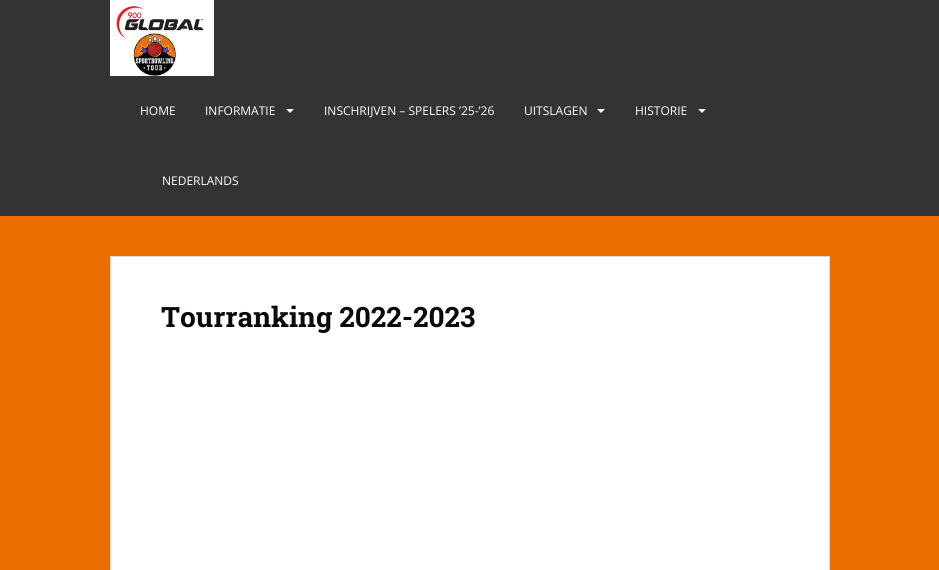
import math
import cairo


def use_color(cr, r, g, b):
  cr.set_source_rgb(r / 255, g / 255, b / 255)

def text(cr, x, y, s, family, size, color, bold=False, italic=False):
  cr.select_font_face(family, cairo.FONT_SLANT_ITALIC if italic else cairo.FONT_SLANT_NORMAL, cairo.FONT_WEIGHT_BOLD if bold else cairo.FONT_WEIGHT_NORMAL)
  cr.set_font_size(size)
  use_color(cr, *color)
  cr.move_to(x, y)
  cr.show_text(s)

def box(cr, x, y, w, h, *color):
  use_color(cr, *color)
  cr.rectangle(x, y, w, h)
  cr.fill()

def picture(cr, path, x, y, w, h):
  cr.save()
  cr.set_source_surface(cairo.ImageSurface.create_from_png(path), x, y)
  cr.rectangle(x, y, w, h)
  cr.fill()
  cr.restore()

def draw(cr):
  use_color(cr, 237, 110, 0)
  cr.paint()
  box(cr, 0, 0, 939, 216, 51, 51, 51)
  picture(cr, "img_01.png", 110, 0, 104, 76)
  use_color(cr, 255, 255, 255)
  cr.new_path()
  cr.move_to(286, 109)
  cr.line_to(294, 109)
  cr.line_to(290, 113)
  cr.close_path()
  cr.fill()
  cr.new_path()
  cr.move_to(597, 109)
  cr.line_to(605, 109)
  cr.line_to(601, 113)
  cr.close_path()
  cr.fill()
  cr.new_path()
  cr.move_to(698, 109)
  cr.line_to(706, 109)
  cr.line_to(702, 113)
  cr.close_path()
  cr.fill()
  cr.rectangle(110.5, 256.5, 719, 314)
  cr.fill_preserve()
  use_color(cr, 218, 218, 218)
  cr.set_line_width(1)
  cr.stroke()
  text(cr, 140, 115, "HOME", "Open Sans", 12, (255, 255, 255))
  text(cr, 205, 115, "INFORMATIE", "Open Sans", 12, (255, 255, 255))
  text(cr, 324, 115, "INSCHRIJVEN – SPELERS ’25-’26", "Open Sans", 12, (255, 255, 255))
  text(cr, 524, 115, "UITSLAGEN", "Open Sans", 12, (255, 255, 255))
  text(cr, 635, 115, "HISTORIE", "Open Sans", 12, (255, 255, 255))
  text(cr, 162, 185, "NEDERLANDS", "Open Sans", 12, (255, 255, 255))
  text(cr, 161, 327, "Tourranking 2022-2023", "Roboto Slab", 28, (10, 10, 10), bold=True)


surface = cairo.ImageSurface(cairo.FORMAT_RGB24, 939, 570)
cr = cairo.Context(surface)
options = cairo.FontOptions()
options.set_hint_metrics(cairo.HINT_METRICS_OFF)
options.set_hint_style(cairo.HINT_STYLE_NONE)
cr.set_font_options(options)
cr.set_miter_limit(4)
draw(cr)
surface.write_to_png("out.png")
